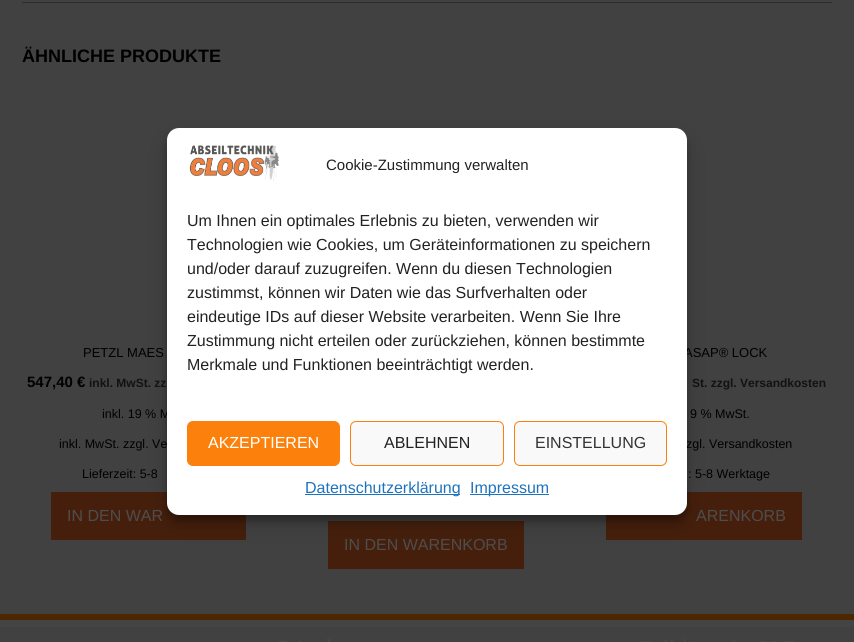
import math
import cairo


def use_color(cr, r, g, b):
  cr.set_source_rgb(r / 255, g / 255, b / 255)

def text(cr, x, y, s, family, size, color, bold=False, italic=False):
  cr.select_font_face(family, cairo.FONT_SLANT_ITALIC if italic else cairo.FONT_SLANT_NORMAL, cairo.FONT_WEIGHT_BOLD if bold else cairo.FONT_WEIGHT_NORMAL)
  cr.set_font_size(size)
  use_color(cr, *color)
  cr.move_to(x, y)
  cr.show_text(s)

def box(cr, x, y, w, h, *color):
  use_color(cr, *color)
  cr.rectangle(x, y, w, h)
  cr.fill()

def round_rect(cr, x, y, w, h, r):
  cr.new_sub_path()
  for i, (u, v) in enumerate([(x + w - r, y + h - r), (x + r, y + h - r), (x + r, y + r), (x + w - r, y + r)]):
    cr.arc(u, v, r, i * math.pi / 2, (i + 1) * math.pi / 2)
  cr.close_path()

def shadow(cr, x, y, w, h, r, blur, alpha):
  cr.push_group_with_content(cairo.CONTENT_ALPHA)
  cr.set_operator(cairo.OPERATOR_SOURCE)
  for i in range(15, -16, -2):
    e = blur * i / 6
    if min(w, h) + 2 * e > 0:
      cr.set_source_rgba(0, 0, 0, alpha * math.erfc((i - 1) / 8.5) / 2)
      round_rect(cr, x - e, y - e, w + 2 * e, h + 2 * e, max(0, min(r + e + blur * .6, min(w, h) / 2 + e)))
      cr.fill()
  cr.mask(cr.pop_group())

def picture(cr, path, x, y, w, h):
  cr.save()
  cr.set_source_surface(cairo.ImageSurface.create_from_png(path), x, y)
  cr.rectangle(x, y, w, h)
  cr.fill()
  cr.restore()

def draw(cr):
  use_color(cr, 65, 65, 65)
  cr.paint()
  box(cr, 22, 2, 810, 1, 44, 45, 46)
  box(cr, 51, 492, 195, 48, 69, 31, 12)
  box(cr, 606, 492, 196, 48, 69, 31, 12)
  box(cr, 328, 521, 196, 48, 69, 31, 12)
  box(cr, 0, 614, 854, 6, 77, 39, 0)
  gradient = cairo.LinearGradient(427, 620, 427, 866)
  gradient.add_color_stop_rgba(0, 0.267, 0.267, 0.267, 1)
  gradient.add_color_stop_rgba(1, 0.2, 0.2, 0.2, 1)
  cr.set_source(gradient)
  cr.rectangle(0, 620, 854, 7)
  cr.fill()
  picture(cr, "img_01.png", 278, 639, 53, 3)
  picture(cr, "img_02.png", 639, 639, 155, 3)
  use_color(cr, 0, 0, 0)
  shadow(cr, 167, 134, 520, 387, 12, 3, 0.23)
  shadow(cr, 167, 138, 520, 387, 12, 10, 0.19)
  text(cr, 22, 62, "ÄHNLICHE PRODUKTE", "Liberation Sans", 18, (0, 0, 0), bold=True)
  text(cr, 83, 357, "PETZL MAES", "Liberation Sans", 13, (0, 0, 0))
  text(cr, 27, 387, "547,40 €", "Liberation Sans", 15, (0, 0, 0), bold=True)
  text(cr, 89, 387, "inkl. MwSt. zz", "Liberation Sans", 12, (18, 18, 18), bold=True)
  text(cr, 102, 418, "inkl. 19 % M", "Liberation Sans", 12.5, (0, 0, 0))
  text(cr, 59, 448, "inkl. MwSt. zzgl. Ve", "Liberation Sans", 12.5, (0, 0, 0))
  text(cr, 82, 478, "Lieferzeit: 5-8", "Liberation Sans", 12.5, (0, 0, 0))
  text(cr, 67, 521, "IN DEN WAR", "Liberation Sans", 16, (77, 77, 77))
  text(cr, 684, 357, "ASAP® LOCK", "Liberation Sans", 13, (0, 0, 0))
  text(cr, 692, 387, "St. zzgl. Versandkosten", "Liberation Sans", 12, (18, 18, 18), bold=True)
  text(cr, 690, 418, "9 % MwSt.", "Liberation Sans", 12.5, (0, 0, 0))
  text(cr, 686, 448, "zgl. Versandkosten", "Liberation Sans", 12.5, (0, 0, 0))
  text(cr, 688, 478, ": 5-8 Werktage", "Liberation Sans", 12.5, (0, 0, 0))
  text(cr, 696, 521, "ARENKORB", "Liberation Sans", 16, (77, 77, 77))
  text(cr, 344, 550, "IN DEN WARENKORB", "Liberation Sans", 16, (77, 77, 77))
  use_color(cr, 255, 255, 255)
  round_rect(cr, 167, 128, 520, 387, 12)
  cr.fill()
  picture(cr, "img_03.png", 189, 145, 90, 36)
  text(cr, 326, 170, "Cookie-Zustimmung verwalten", "Liberation Sans", 15, (34, 34, 34))
  text(cr, 187, 226, "Um Ihnen ein optimales Erlebnis zu bieten, verwenden wir", "Liberation Sans", 16, (34, 34, 34))
  text(cr, 187, 250, "Technologien wie Cookies, um Geräteinformationen zu speichern", "Liberation Sans", 16, (34, 34, 34))
  text(cr, 187, 274, "und/oder darauf zuzugreifen. Wenn du diesen Technologien", "Liberation Sans", 16, (34, 34, 34))
  text(cr, 187, 298, "zustimmst, können wir Daten wie das Surfverhalten oder", "Liberation Sans", 16, (34, 34, 34))
  text(cr, 187, 322, "eindeutige IDs auf dieser Website verarbeiten. Wenn Sie Ihre", "Liberation Sans", 16, (34, 34, 34))
  text(cr, 187, 346, "Zustimmung nicht erteilen oder zurückziehen, können bestimmte", "Liberation Sans", 16, (34, 34, 34))
  text(cr, 187, 370, "Merkmale und Funktionen beeinträchtigt werden.", "Liberation Sans", 16, (34, 34, 34))
  use_color(cr, 251, 129, 12)
  round_rect(cr, 187.5, 421.5, 152, 44, 5.5)
  cr.fill_preserve()
  cr.set_line_width(1)
  cr.stroke()
  text(cr, 208, 448, "AKZEPTIEREN", "Liberation Sans", 16, (255, 255, 255))
  use_color(cr, 249, 249, 249)
  round_rect(cr, 350.5, 421.5, 153, 44, 5.5)
  cr.fill_preserve()
  use_color(cr, 251, 129, 12)
  cr.stroke()
  text(cr, 384, 448, "ABLEHNEN", "Liberation Sans", 16, (34, 34, 34))
  use_color(cr, 249, 249, 249)
  round_rect(cr, 514.5, 421.5, 152, 44, 5.5)
  cr.fill_preserve()
  use_color(cr, 251, 129, 12)
  cr.stroke()
  text(cr, 535, 448, "EINSTELLUNG", "Liberation Sans", 16, (51, 51, 51))
  box(cr, 305, 494, 155, 1, 30, 115, 190)
  text(cr, 305, 493, "Datenschutzerklärung", "Liberation Sans", 16, (30, 115, 190))
  box(cr, 470, 494, 79, 1, 30, 115, 190)
  text(cr, 470, 493, "Impressum", "Liberation Sans", 16, (30, 115, 190))


surface = cairo.ImageSurface(cairo.FORMAT_RGB24, 854, 642)
cr = cairo.Context(surface)
options = cairo.FontOptions()
options.set_hint_metrics(cairo.HINT_METRICS_OFF)
options.set_hint_style(cairo.HINT_STYLE_NONE)
cr.set_font_options(options)
cr.set_miter_limit(4)
draw(cr)
surface.write_to_png("out.png")
